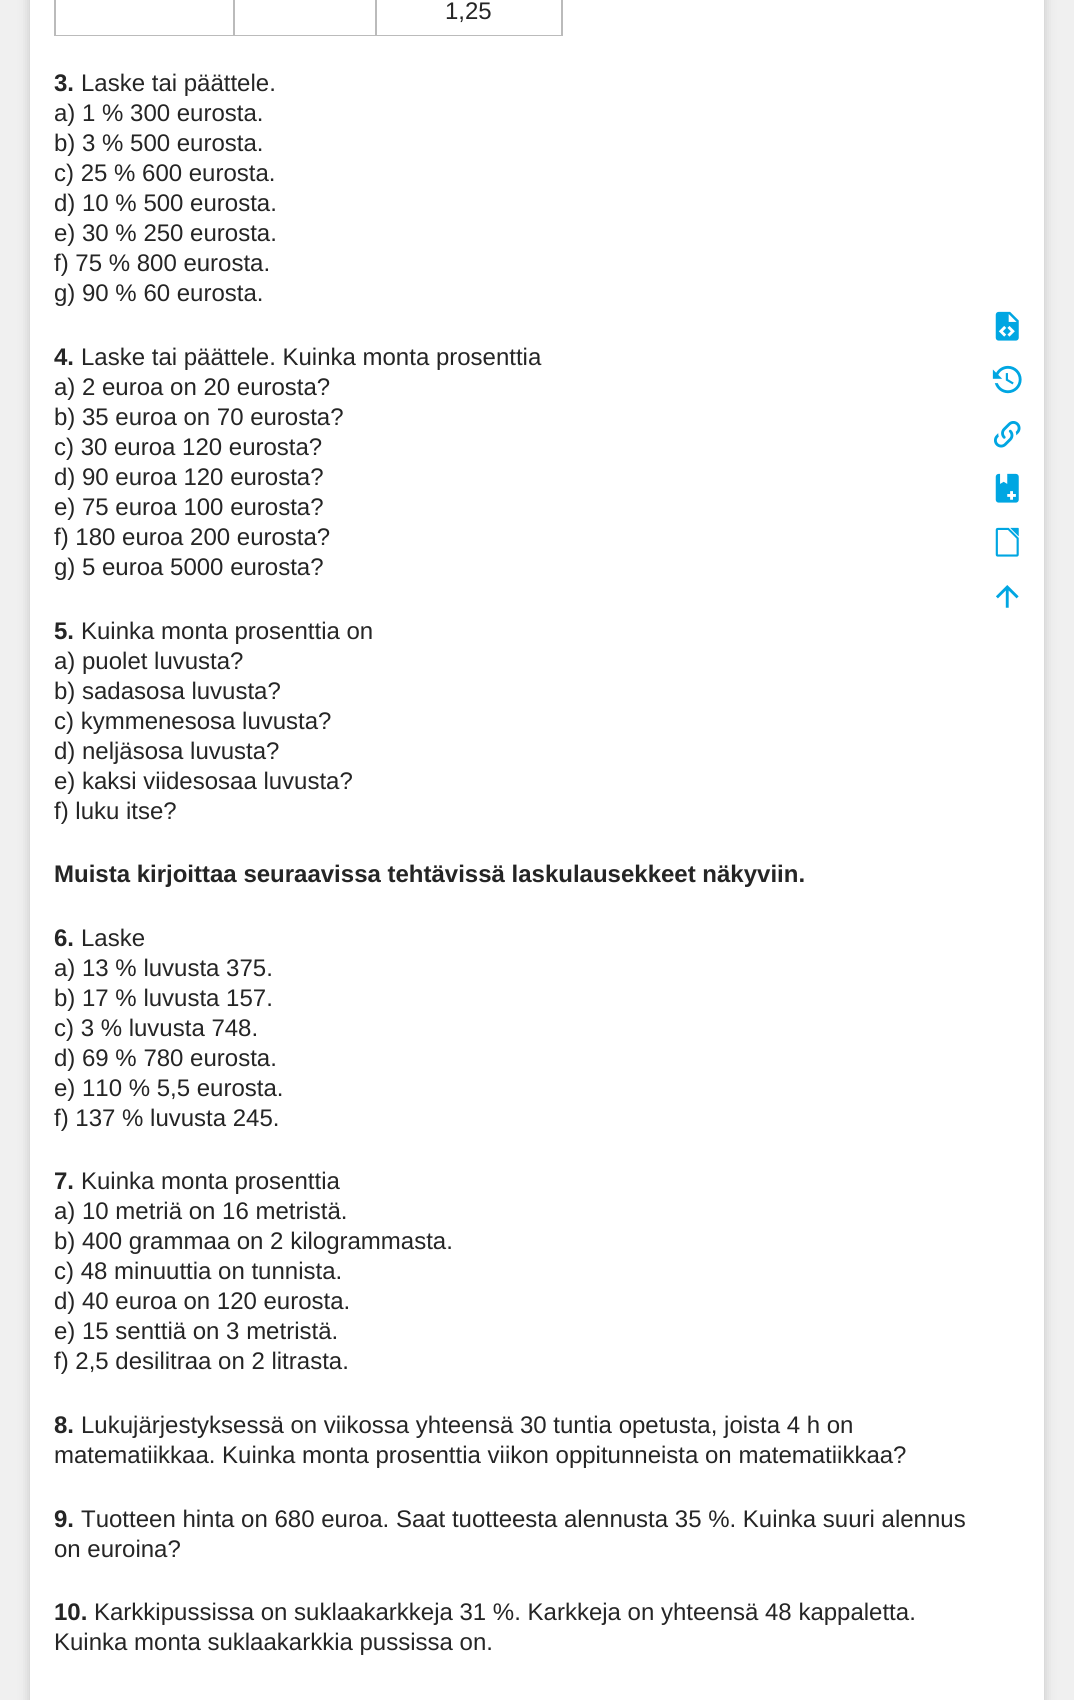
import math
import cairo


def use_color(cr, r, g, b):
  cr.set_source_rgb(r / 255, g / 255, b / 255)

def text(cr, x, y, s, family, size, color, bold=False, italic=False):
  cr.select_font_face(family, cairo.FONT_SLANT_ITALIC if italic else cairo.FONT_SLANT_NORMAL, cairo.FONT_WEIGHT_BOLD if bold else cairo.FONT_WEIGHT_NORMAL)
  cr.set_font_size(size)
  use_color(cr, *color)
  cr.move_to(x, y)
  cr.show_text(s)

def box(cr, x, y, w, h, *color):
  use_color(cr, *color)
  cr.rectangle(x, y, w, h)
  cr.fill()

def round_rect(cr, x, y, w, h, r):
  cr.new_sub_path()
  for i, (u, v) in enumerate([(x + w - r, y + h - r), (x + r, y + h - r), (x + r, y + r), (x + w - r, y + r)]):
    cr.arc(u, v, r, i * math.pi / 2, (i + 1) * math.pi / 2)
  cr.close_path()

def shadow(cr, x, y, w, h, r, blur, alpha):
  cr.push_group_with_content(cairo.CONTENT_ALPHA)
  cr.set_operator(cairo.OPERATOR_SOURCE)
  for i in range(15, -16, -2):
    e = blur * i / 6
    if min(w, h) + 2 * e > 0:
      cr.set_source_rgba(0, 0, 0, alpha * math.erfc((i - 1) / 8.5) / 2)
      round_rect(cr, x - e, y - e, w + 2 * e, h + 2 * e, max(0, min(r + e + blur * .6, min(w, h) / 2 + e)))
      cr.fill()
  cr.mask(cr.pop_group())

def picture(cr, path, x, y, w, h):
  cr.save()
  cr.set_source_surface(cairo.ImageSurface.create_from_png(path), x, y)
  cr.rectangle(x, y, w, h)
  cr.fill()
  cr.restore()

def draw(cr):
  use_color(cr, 240, 240, 240)
  cr.paint()
  use_color(cr, 153, 153, 153)
  shadow(cr, 30, -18, 1014, 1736, 0, 6, 0.5)
  box(cr, 30, 0, 1014, 1700, 255, 255, 255)
  box(cr, 561, 0, 2, 36, 187, 187, 187)
  box(cr, 54, 35, 509, 1, 187, 187, 187)
  box(cr, 54, 0, 2, 36, 187, 187, 187)
  box(cr, 233, 0, 2, 36, 187, 187, 187)
  box(cr, 375, 0, 2, 36, 187, 187, 187)
  picture(cr, "img_01.png", 995, 311, 24, 30)
  picture(cr, "img_02.png", 992, 365, 30, 29)
  picture(cr, "img_03.png", 994, 421, 27, 27)
  picture(cr, "img_04.png", 995, 473, 24, 30)
  picture(cr, "img_05.png", 995, 527, 24, 30)
  picture(cr, "img_06.png", 996, 585, 23, 23)
  text(cr, 445, 19, "1,25", "Liberation Sans", 24, (37, 37, 37))
  text(cr, 54, 91, "3.", "Liberation Sans", 24, (37, 37, 37), bold=True)
  text(cr, 81, 91, "Laske tai päättele.", "Liberation Sans", 24, (37, 37, 37))
  text(cr, 54, 121, "a) 1 % 300 eurosta.", "Liberation Sans", 24, (37, 37, 37))
  text(cr, 54, 151, "b) 3 % 500 eurosta.", "Liberation Sans", 24, (37, 37, 37))
  text(cr, 54, 181, "c) 25 % 600 eurosta.", "Liberation Sans", 24, (37, 37, 37))
  text(cr, 54, 211, "d) 10 % 500 eurosta.", "Liberation Sans", 24, (37, 37, 37))
  text(cr, 54, 241, "e) 30 % 250 eurosta.", "Liberation Sans", 24, (37, 37, 37))
  text(cr, 54, 271, "f) 75 % 800 eurosta.", "Liberation Sans", 24, (37, 37, 37))
  text(cr, 54, 301, "g) 90 % 60 eurosta.", "Liberation Sans", 24, (37, 37, 37))
  text(cr, 54, 365, "4.", "Liberation Sans", 24, (37, 37, 37), bold=True)
  text(cr, 81, 365, "Laske tai päättele. Kuinka monta prosenttia", "Liberation Sans", 24, (37, 37, 37))
  text(cr, 54, 395, "a) 2 euroa on 20 eurosta?", "Liberation Sans", 24, (37, 37, 37))
  text(cr, 54, 425, "b) 35 euroa on 70 eurosta?", "Liberation Sans", 24, (37, 37, 37))
  text(cr, 54, 455, "c) 30 euroa 120 eurosta?", "Liberation Sans", 24, (37, 37, 37))
  text(cr, 54, 485, "d) 90 euroa 120 eurosta?", "Liberation Sans", 24, (37, 37, 37))
  text(cr, 54, 515, "e) 75 euroa 100 eurosta?", "Liberation Sans", 24, (37, 37, 37))
  text(cr, 54, 545, "f) 180 euroa 200 eurosta?", "Liberation Sans", 24, (37, 37, 37))
  text(cr, 54, 575, "g) 5 euroa 5000 eurosta?", "Liberation Sans", 24, (37, 37, 37))
  text(cr, 54, 639, "5.", "Liberation Sans", 24, (37, 37, 37), bold=True)
  text(cr, 81, 639, "Kuinka monta prosenttia on", "Liberation Sans", 24, (37, 37, 37))
  text(cr, 54, 669, "a) puolet luvusta?", "Liberation Sans", 24, (37, 37, 37))
  text(cr, 54, 699, "b) sadasosa luvusta?", "Liberation Sans", 24, (37, 37, 37))
  text(cr, 54, 729, "c) kymmenesosa luvusta?", "Liberation Sans", 24, (37, 37, 37))
  text(cr, 54, 759, "d) neljäsosa luvusta?", "Liberation Sans", 24, (37, 37, 37))
  text(cr, 54, 789, "e) kaksi viidesosaa luvusta?", "Liberation Sans", 24, (37, 37, 37))
  text(cr, 54, 819, "f) luku itse?", "Liberation Sans", 24, (37, 37, 37))
  text(cr, 54, 882, "Muista kirjoittaa seuraavissa tehtävissä laskulausekkeet näkyviin.", "Liberation Sans", 24, (37, 37, 37), bold=True)
  text(cr, 54, 946, "6.", "Liberation Sans", 24, (37, 37, 37), bold=True)
  text(cr, 81, 946, "Laske", "Liberation Sans", 24, (37, 37, 37))
  text(cr, 54, 976, "a) 13 % luvusta 375.", "Liberation Sans", 24, (37, 37, 37))
  text(cr, 54, 1006, "b) 17 % luvusta 157.", "Liberation Sans", 24, (37, 37, 37))
  text(cr, 54, 1036, "c) 3 % luvusta 748.", "Liberation Sans", 24, (37, 37, 37))
  text(cr, 54, 1066, "d) 69 % 780 eurosta.", "Liberation Sans", 24, (37, 37, 37))
  text(cr, 54, 1096, "e) 110 % 5,5 eurosta.", "Liberation Sans", 24, (37, 37, 37))
  text(cr, 54, 1126, "f) 137 % luvusta 245.", "Liberation Sans", 24, (37, 37, 37))
  text(cr, 54, 1189, "7.", "Liberation Sans", 24, (37, 37, 37), bold=True)
  text(cr, 81, 1189, "Kuinka monta prosenttia", "Liberation Sans", 24, (37, 37, 37))
  text(cr, 54, 1219, "a) 10 metriä on 16 metristä.", "Liberation Sans", 24, (37, 37, 37))
  text(cr, 54, 1249, "b) 400 grammaa on 2 kilogrammasta.", "Liberation Sans", 24, (37, 37, 37))
  text(cr, 54, 1279, "c) 48 minuuttia on tunnista.", "Liberation Sans", 24, (37, 37, 37))
  text(cr, 54, 1309, "d) 40 euroa on 120 eurosta.", "Liberation Sans", 24, (37, 37, 37))
  text(cr, 54, 1339, "e) 15 senttiä on 3 metristä.", "Liberation Sans", 24, (37, 37, 37))
  text(cr, 54, 1369, "f) 2,5 desilitraa on 2 litrasta.", "Liberation Sans", 24, (37, 37, 37))
  text(cr, 54, 1433, "8.", "Liberation Sans", 24, (37, 37, 37), bold=True)
  text(cr, 81, 1433, "Lukujärjestyksessä on viikossa yhteensä 30 tuntia opetusta, joista 4 h on", "Liberation Sans", 24, (37, 37, 37))
  text(cr, 54, 1463, "matematiikkaa. Kuinka monta prosenttia viikon oppitunneista on matematiikkaa?", "Liberation Sans", 24, (37, 37, 37))
  text(cr, 54, 1527, "9.", "Liberation Sans", 24, (37, 37, 37), bold=True)
  text(cr, 81, 1527, "Tuotteen hinta on 680 euroa. Saat tuotteesta alennusta 35 %. Kuinka suuri alennus", "Liberation Sans", 24, (37, 37, 37))
  text(cr, 54, 1557, "on euroina?", "Liberation Sans", 24, (37, 37, 37))
  text(cr, 54, 1620, "10.", "Liberation Sans", 24, (37, 37, 37), bold=True)
  text(cr, 94, 1620, "Karkkipussissa on suklaakarkkeja 31 %. Karkkeja on yhteensä 48 kappaletta.", "Liberation Sans", 24, (37, 37, 37))
  text(cr, 54, 1650, "Kuinka monta suklaakarkkia pussissa on.", "Liberation Sans", 24, (37, 37, 37))


surface = cairo.ImageSurface(cairo.FORMAT_RGB24, 1074, 1700)
cr = cairo.Context(surface)
options = cairo.FontOptions()
options.set_hint_metrics(cairo.HINT_METRICS_OFF)
options.set_hint_style(cairo.HINT_STYLE_NONE)
cr.set_font_options(options)
cr.set_miter_limit(4)
draw(cr)
surface.write_to_png("out.png")
